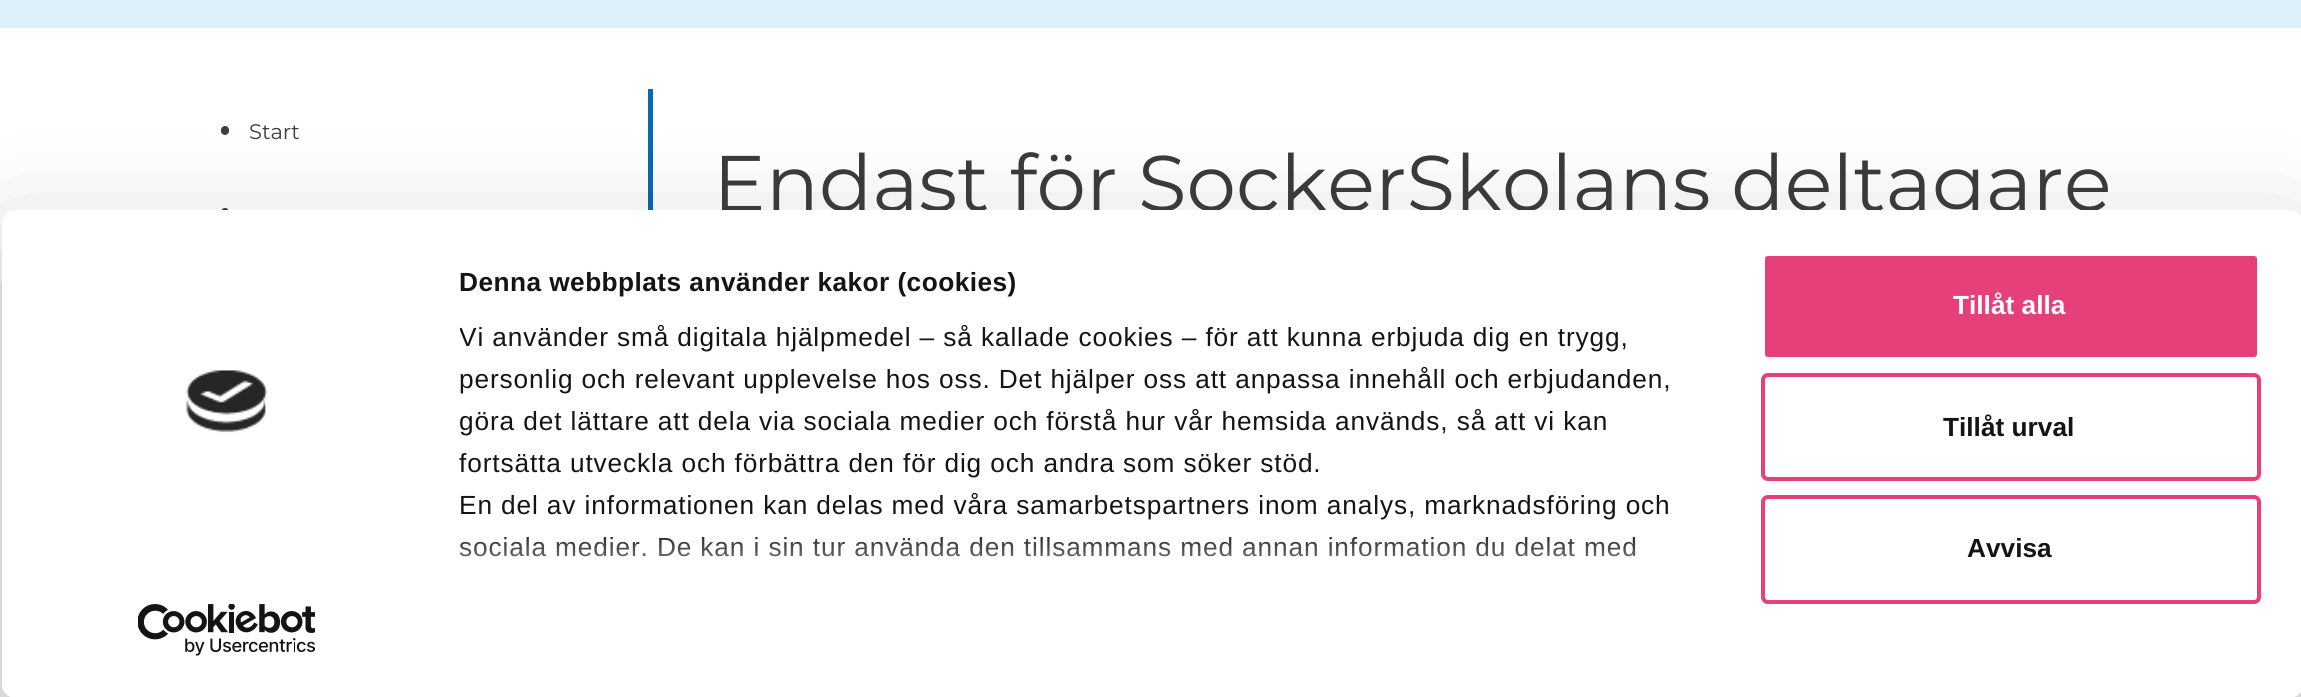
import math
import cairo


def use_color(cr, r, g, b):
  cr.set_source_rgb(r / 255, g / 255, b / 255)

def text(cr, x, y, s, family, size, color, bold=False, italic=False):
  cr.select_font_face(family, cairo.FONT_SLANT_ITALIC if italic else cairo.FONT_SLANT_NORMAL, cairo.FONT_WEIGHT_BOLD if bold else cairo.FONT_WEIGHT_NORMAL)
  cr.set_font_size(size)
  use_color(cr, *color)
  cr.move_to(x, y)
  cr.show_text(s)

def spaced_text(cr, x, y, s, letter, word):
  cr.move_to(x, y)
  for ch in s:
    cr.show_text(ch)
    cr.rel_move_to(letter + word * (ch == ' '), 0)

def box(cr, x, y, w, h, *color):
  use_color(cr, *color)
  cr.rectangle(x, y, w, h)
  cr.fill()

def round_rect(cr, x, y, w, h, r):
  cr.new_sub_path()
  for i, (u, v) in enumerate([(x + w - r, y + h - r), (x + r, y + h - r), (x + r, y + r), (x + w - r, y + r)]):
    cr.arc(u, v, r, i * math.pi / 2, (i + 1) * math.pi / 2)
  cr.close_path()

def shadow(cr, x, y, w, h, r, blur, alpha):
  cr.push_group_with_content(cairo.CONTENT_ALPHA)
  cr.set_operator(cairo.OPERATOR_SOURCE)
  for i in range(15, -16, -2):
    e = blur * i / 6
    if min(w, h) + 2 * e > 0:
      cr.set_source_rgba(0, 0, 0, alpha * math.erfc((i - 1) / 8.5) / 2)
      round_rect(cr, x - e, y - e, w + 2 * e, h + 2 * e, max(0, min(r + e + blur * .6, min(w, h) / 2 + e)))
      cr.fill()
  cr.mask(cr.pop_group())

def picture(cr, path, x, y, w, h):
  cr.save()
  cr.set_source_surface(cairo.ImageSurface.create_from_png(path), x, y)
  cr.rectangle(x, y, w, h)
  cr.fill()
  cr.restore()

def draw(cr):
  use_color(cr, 255, 255, 255)
  cr.paint()
  box(cr, 0, 0, 2301, 28, 220, 240, 251)
  box(cr, 648, 89, 5, 121, 7, 105, 177)
  use_color(cr, 55, 63, 64)
  round_rect(cr, 221, 126, 8, 9, 4)
  cr.fill()
  round_rect(cr, 221, 208, 8, 9, 4)
  cr.fill()
  cr.save()
  cr.set_fill_rule(cairo.FILL_RULE_EVEN_ODD)
  cr.new_path()
  cr.move_to(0, 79)
  cr.line_to(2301, 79)
  cr.line_to(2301, 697)
  cr.line_to(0, 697)
  cr.close_path()
  cr.move_to(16, 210)
  cr.line_to(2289, 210)
  cr.curve_to(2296.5, 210, 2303, 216.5, 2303, 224)
  cr.line_to(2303, 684)
  cr.curve_to(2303, 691.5, 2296.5, 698, 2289, 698)
  cr.line_to(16, 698)
  cr.curve_to(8.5, 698, 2, 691.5, 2, 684)
  cr.line_to(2, 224)
  cr.curve_to(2, 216.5, 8.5, 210, 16, 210)
  cr.close_path()
  cr.clip()
  use_color(cr, 0, 0, 0)
  shadow(cr, 2, 263, 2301, 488, 14, 61, 0.3)
  cr.restore()
  text(cr, 249, 139, "Start", "Montserrat", 21, (55, 63, 64))
  text(cr, 713, 211, "Endast för SockerSkolans deltagare", "Montserrat", 78.75, (58, 58, 58))
  use_color(cr, 255, 255, 255)
  round_rect(cr, 2, 210, 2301, 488, 14)
  cr.fill()
  picture(cr, "img_01.png", 186, 370, 81, 63)
  picture(cr, "img_02.png", 138, 604, 177, 52)
  cr.select_font_face("Liberation Sans", cairo.FONT_SLANT_NORMAL, cairo.FONT_WEIGHT_BOLD)
  cr.set_font_size(26.25)
  use_color(cr, 20, 20, 20)
  spaced_text(cr, 459, 291, "Denna webbplats använder kakor (cookies)", 0.45, 0)
  cr.save()
  cr.rectangle(460, 263, 1250, 386)
  cr.clip()
  cr.select_font_face("Liberation Sans")
  spaced_text(cr, 459, 346, "Vi använder små digitala hjälpmedel – så kallade cookies – för att kunna erbjuda dig en trygg,", 0.88, 0)
  cr.restore()
  cr.select_font_face("Liberation Sans")
  spaced_text(cr, 459, 388, "personlig och relevant upplevelse hos oss. Det hjälper oss att anpassa innehåll och erbjudanden,", 0.88, 0)
  cr.save()
  cr.rectangle(460, 263, 1250, 386)
  cr.clip()
  spaced_text(cr, 459, 430, "göra det lättare att dela via sociala medier och förstå hur vår hemsida används, så att vi kan", 0.88, 0)
  cr.restore()
  spaced_text(cr, 459, 472, "fortsätta utveckla och förbättra den för dig och andra som söker stöd.", 0.88, 0)
  spaced_text(cr, 459, 514, "En del av informationen kan delas med våra samarbetspartners inom analys, marknadsföring och", 0.88, 0)
  spaced_text(cr, 459, 556, "sociala medier. De kan i sin tur använda den tillsammans med annan information du delat med", 0.88, 0)
  gradient = cairo.LinearGradient(1067, 659, 1067, 528)
  gradient.add_color_stop_rgba(0, 1, 1, 1, 1)
  gradient.add_color_stop_rgba(0.5, 1, 1, 1, 0.8)
  gradient.add_color_stop_rgba(1, 1, 1, 1, 0)
  cr.set_source(gradient)
  cr.rectangle(459, 537, 1176, 20)
  cr.fill()
  use_color(cr, 229, 64, 122)
  round_rect(cr, 1763, 254, 496, 105, 5)
  cr.fill_preserve()
  use_color(cr, 255, 255, 255)
  cr.set_line_width(4)
  cr.stroke()
  text(cr, 1953, 314, "Tillåt alla", "Liberation Sans", 26.25, (255, 255, 255), bold=True)
  round_rect(cr, 1763, 375, 496, 104, 5)
  use_color(cr, 229, 64, 122)
  cr.stroke()
  text(cr, 1943, 436, "Tillåt urval", "Liberation Sans", 26.25, (20, 20, 20), bold=True)
  round_rect(cr, 1763, 497, 496, 105, 5)
  use_color(cr, 229, 64, 122)
  cr.stroke()
  text(cr, 1967, 557, "Avvisa", "Liberation Sans", 26.25, (20, 20, 20), bold=True)


surface = cairo.ImageSurface(cairo.FORMAT_RGB24, 2301, 697)
cr = cairo.Context(surface)
options = cairo.FontOptions()
options.set_hint_metrics(cairo.HINT_METRICS_OFF)
options.set_hint_style(cairo.HINT_STYLE_NONE)
cr.set_font_options(options)
cr.set_miter_limit(4)
draw(cr)
surface.write_to_png("out.png")
